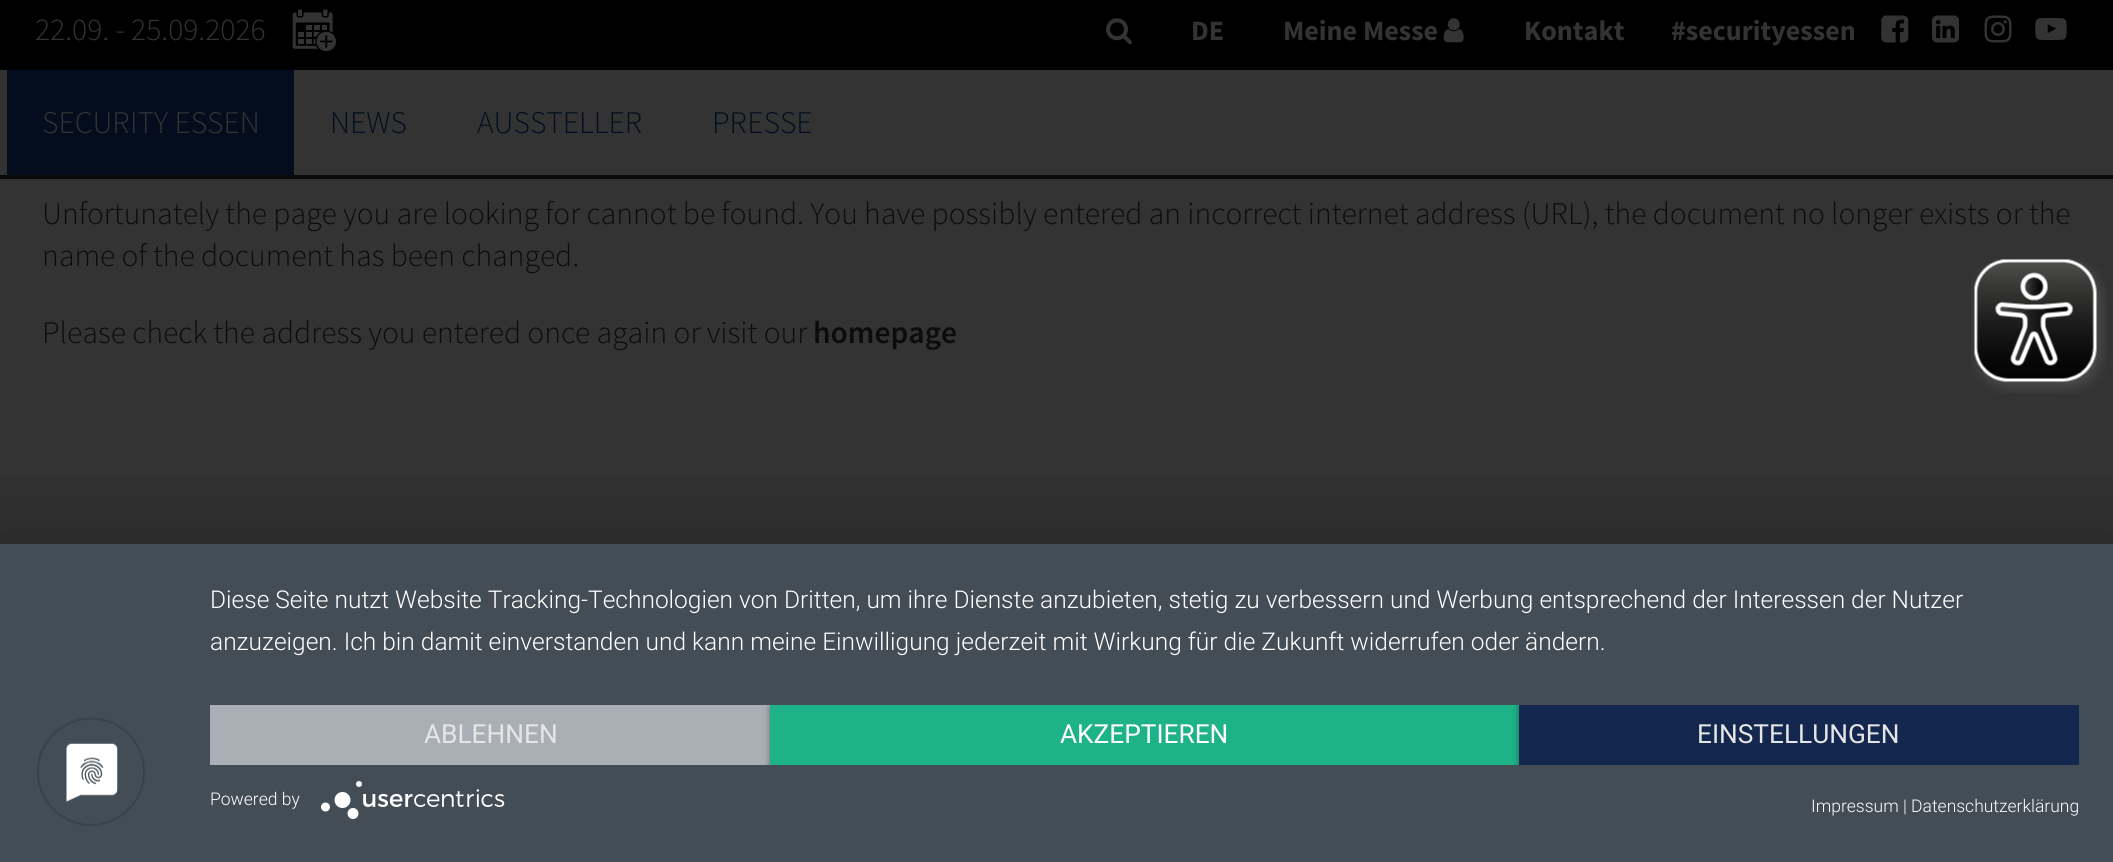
import math
import cairo


def use_color(cr, r, g, b):
  cr.set_source_rgb(r / 255, g / 255, b / 255)

def text(cr, x, y, s, family, size, color, bold=False, italic=False):
  cr.select_font_face(family, cairo.FONT_SLANT_ITALIC if italic else cairo.FONT_SLANT_NORMAL, cairo.FONT_WEIGHT_BOLD if bold else cairo.FONT_WEIGHT_NORMAL)
  cr.set_font_size(size)
  use_color(cr, *color)
  cr.move_to(x, y)
  cr.show_text(s)

def box(cr, x, y, w, h, *color):
  use_color(cr, *color)
  cr.rectangle(x, y, w, h)
  cr.fill()

def round_rect(cr, x, y, w, h, r):
  cr.new_sub_path()
  for i, (u, v) in enumerate([(x + w - r, y + h - r), (x + r, y + h - r), (x + r, y + r), (x + w - r, y + r)]):
    cr.arc(u, v, r, i * math.pi / 2, (i + 1) * math.pi / 2)
  cr.close_path()

def shadow(cr, x, y, w, h, r, blur, alpha):
  cr.push_group_with_content(cairo.CONTENT_ALPHA)
  cr.set_operator(cairo.OPERATOR_SOURCE)
  for i in range(15, -16, -2):
    e = blur * i / 6
    if min(w, h) + 2 * e > 0:
      cr.set_source_rgba(0, 0, 0, alpha * math.erfc((i - 1) / 8.5) / 2)
      round_rect(cr, x - e, y - e, w + 2 * e, h + 2 * e, max(0, min(r + e + blur * .6, min(w, h) / 2 + e)))
      cr.fill()
  cr.mask(cr.pop_group())

def picture(cr, path, x, y, w, h):
  cr.save()
  cr.set_source_surface(cairo.ImageSurface.create_from_png(path), x, y)
  cr.rectangle(x, y, w, h)
  cr.fill()
  cr.restore()

def draw(cr):
  use_color(cr, 51, 51, 51)
  cr.paint()
  box(cr, 0, 175, 2113, 4, 10, 10, 10)
  box(cr, 0, 0, 2113, 70, 0, 0, 0)
  picture(cr, "img_01.png", 292, 9, 44, 43)
  picture(cr, "img_02.png", 1106, 18, 26, 27)
  picture(cr, "img_03.png", 1443, 18, 21, 25)
  picture(cr, "img_04.png", 1881, 15, 28, 28)
  picture(cr, "img_05.png", 1932, 15, 27, 28)
  picture(cr, "img_06.png", 1984, 15, 28, 28)
  picture(cr, "img_07.png", 2035, 17, 32, 24)
  box(cr, 7, 70, 287, 105, 3, 13, 29)
  picture(cr, "img_08.png", 1971, 258, 136, 136)
  box(cr, 0, 476, 2113, 68, 48, 48, 48)
  use_color(cr, 0, 0, 0)
  shadow(cr, 0, 555, 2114, 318, 0, 31.5, 0.3)
  box(cr, 0, 544, 2113, 318, 66, 77, 86)
  picture(cr, "img_09.png", 37, 717, 108, 109)
  box(cr, 210, 705, 560, 60, 169, 175, 181)
  cr.save()
  cr.rectangle(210, 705, 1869, 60)
  cr.clip()
  use_color(cr, 0, 0, 0)
  shadow(cr, 770, 707, 749, 60, 0, 3.5, 0.4)
  cr.restore()
  box(cr, 770, 705, 749, 60, 29, 178, 136)
  cr.save()
  cr.rectangle(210, 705, 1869, 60)
  cr.clip()
  use_color(cr, 0, 0, 0)
  shadow(cr, 1519, 707, 560, 60, 0, 3.5, 0.4)
  cr.restore()
  box(cr, 1519, 705, 560, 60, 20, 39, 79)
  picture(cr, "img_10.png", 321, 781, 184, 38)
  text(cr, 35, 40, "22.09. - 25.09.2026", "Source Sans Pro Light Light", 31.5, (51, 51, 51))
  text(cr, 1191, 40, "DE", "Source Sans Pro", 28, (51, 51, 51), bold=True)
  text(cr, 1283, 40, "Meine Messe", "Source Sans Pro", 28, (51, 51, 51), bold=True)
  text(cr, 1524, 40, "Kontakt", "Source Sans Pro", 28, (51, 51, 51), bold=True)
  text(cr, 1671, 40, "#securityessen", "Source Sans Pro", 28, (51, 51, 51), bold=True)
  text(cr, 42, 133, "SECURITY ESSEN", "Source Sans Pro Light Light", 31.5, (51, 51, 51))
  text(cr, 330, 133, "NEWS", "Source Sans Pro Light Light", 31.5, (3, 13, 29))
  text(cr, 477, 133, "AUSSTELLER", "Source Sans Pro Light Light", 31.5, (3, 13, 29))
  text(cr, 712, 133, "PRESSE", "Source Sans Pro Light Light", 31.5, (3, 13, 29))
  text(cr, 42, 224, "Unfortunately the page you are looking for cannot be found. You have possibly entered an incorrect internet address (URL), the document no longer exists or the", "Source Sans Pro Light Light", 31.5, (11, 12, 12))
  text(cr, 42, 266, "name of the document has been changed.", "Source Sans Pro Light Light", 31.5, (11, 12, 12))
  text(cr, 42, 343, "Please check the address you entered once again or visit our", "Source Sans Pro Light Light", 31.5, (11, 12, 12))
  text(cr, 813, 343, "homepage", "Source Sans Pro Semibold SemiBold", 31.5, (11, 12, 12))
  text(cr, 210, 608, "Diese Seite nutzt Website Tracking-Technologien von Dritten, um ihre Dienste anzubieten, stetig zu verbessern und Werbung entsprechend der Interessen der Nutzer", "Roboto Light", 24.5, (255, 255, 255))
  text(cr, 210, 650, "anzuzeigen. Ich bin damit einverstanden und kann meine Einwilligung jederzeit mit Wirkung für die Zukunft widerrufen oder ändern.", "Roboto Light", 24.5, (255, 255, 255))
  text(cr, 424, 743, "ABLEHNEN", "Roboto", 26.25, (230, 230, 230))
  text(cr, 1060, 743, "AKZEPTIEREN", "Roboto", 26.25, (255, 255, 255))
  text(cr, 1697, 743, "EINSTELLUNGEN", "Roboto", 26.25, (230, 230, 230))
  text(cr, 210, 805, "Powered by", "Roboto Light", 17.5, (255, 255, 255))
  text(cr, 1811, 812, "Impressum | Datenschutzerklärung", "Roboto Light", 17.5, (255, 255, 255))


surface = cairo.ImageSurface(cairo.FORMAT_RGB24, 2113, 862)
cr = cairo.Context(surface)
options = cairo.FontOptions()
options.set_hint_metrics(cairo.HINT_METRICS_OFF)
options.set_hint_style(cairo.HINT_STYLE_NONE)
cr.set_font_options(options)
cr.set_miter_limit(4)
draw(cr)
surface.write_to_png("out.png")
